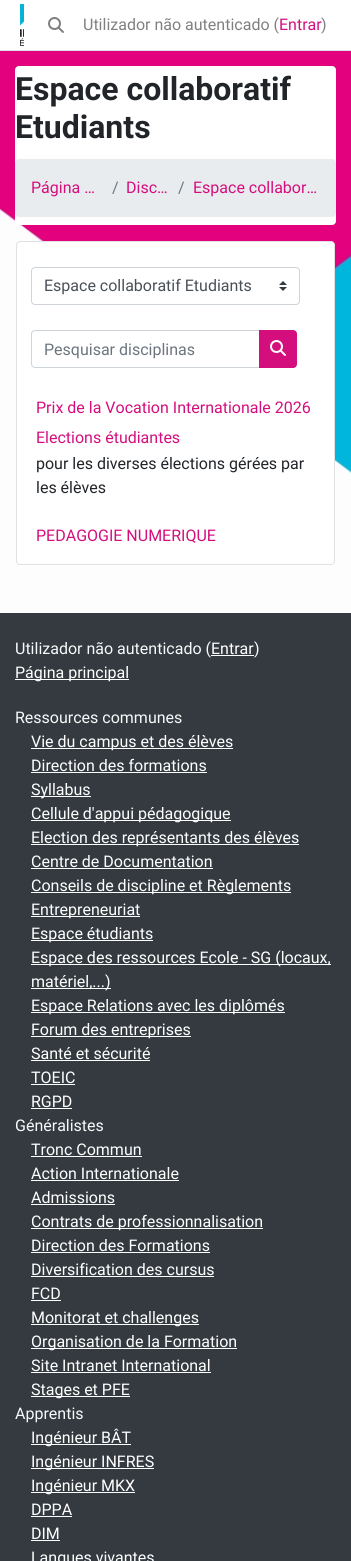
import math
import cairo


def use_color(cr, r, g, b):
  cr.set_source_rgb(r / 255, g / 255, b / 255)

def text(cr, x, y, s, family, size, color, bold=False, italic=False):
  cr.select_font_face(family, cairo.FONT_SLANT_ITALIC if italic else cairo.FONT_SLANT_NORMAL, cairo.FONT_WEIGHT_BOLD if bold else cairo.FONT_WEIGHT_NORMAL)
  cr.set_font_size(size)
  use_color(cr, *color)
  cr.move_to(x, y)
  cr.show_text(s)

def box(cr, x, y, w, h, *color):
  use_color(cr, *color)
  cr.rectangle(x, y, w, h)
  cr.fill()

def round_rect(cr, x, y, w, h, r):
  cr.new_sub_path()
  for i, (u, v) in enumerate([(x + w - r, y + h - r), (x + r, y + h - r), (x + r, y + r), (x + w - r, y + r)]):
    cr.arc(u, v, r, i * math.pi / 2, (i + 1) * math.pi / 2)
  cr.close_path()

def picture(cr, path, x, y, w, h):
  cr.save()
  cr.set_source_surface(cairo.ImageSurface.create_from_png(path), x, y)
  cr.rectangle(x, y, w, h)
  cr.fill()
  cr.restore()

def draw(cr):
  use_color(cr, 255, 255, 255)
  cr.paint()
  picture(cr, "img_01.png", 0, 51, 351, 562)
  box(cr, 0, 50, 351, 1, 222, 226, 230)
  picture(cr, "img_02.png", 20, 4, 4, 42)
  picture(cr, "img_03.png", 48, 17, 16, 16)
  use_color(cr, 255, 255, 255)
  round_rect(cr, 15, 66, 321, 159, 4)
  cr.fill()
  use_color(cr, 233, 236, 239)
  round_rect(cr, 15, 159, 321, 58, 4)
  cr.fill()
  use_color(cr, 255, 255, 255)
  round_rect(cr, 16, 241, 319, 324, 4)
  cr.fill()
  round_rect(cr, 16.5, 241.5, 318, 323, 3.5)
  cr.set_source_rgba(0, 0, 0, 0.12)
  cr.set_line_width(1)
  cr.stroke()
  picture(cr, "img_04.png", 279, 281, 8, 10)
  round_rect(cr, 31.5, 267.5, 268, 37, 3.5)
  use_color(cr, 206, 212, 218)
  cr.stroke()
  cr.new_path()
  cr.move_to(35, 330.5)
  cr.line_to(259.5, 330.5)
  cr.line_to(259.5, 367.5)
  cr.line_to(35, 367.5)
  cr.curve_to(33, 367.5, 31.5, 366, 31.5, 364)
  cr.line_to(31.5, 334)
  cr.curve_to(31.5, 332, 33, 330.5, 35, 330.5)
  cr.close_path()
  cr.stroke()
  use_color(cr, 212, 15, 125)
  cr.new_path()
  cr.move_to(259.5, 330.5)
  cr.line_to(293, 330.5)
  cr.curve_to(295, 330.5, 296.5, 332, 296.5, 334)
  cr.line_to(296.5, 364)
  cr.curve_to(296.5, 366, 295, 367.5, 293, 367.5)
  cr.line_to(259.5, 367.5)
  cr.close_path()
  cr.fill_preserve()
  cr.stroke()
  picture(cr, "img_05.png", 270, 340, 16, 16)
  box(cr, 0, 613, 351, 948, 52, 58, 64)
  box(cr, 211, 655, 43, 1, 255, 255, 255)
  box(cr, 15, 679, 114, 1, 255, 255, 255)
  box(cr, 31, 748, 202, 1, 255, 255, 255)
  box(cr, 31, 772, 176, 1, 255, 255, 255)
  box(cr, 31, 796, 60, 1, 255, 255, 255)
  box(cr, 31, 820, 200, 1, 255, 255, 255)
  box(cr, 31, 844, 268, 1, 255, 255, 255)
  box(cr, 31, 868, 182, 1, 255, 255, 255)
  box(cr, 31, 892, 260, 1, 255, 255, 255)
  box(cr, 31, 916, 109, 1, 255, 255, 255)
  box(cr, 31, 940, 122, 1, 255, 255, 255)
  box(cr, 31, 964, 300, 1, 255, 255, 255)
  box(cr, 31, 988, 80, 1, 255, 255, 255)
  box(cr, 31, 1012, 254, 1, 255, 255, 255)
  box(cr, 31, 1036, 160, 1, 255, 255, 255)
  box(cr, 31, 1060, 119, 1, 255, 255, 255)
  box(cr, 31, 1084, 44, 1, 255, 255, 255)
  box(cr, 31, 1108, 41, 1, 255, 255, 255)
  box(cr, 31, 1156, 111, 1, 255, 255, 255)
  box(cr, 31, 1180, 148, 1, 255, 255, 255)
  box(cr, 31, 1204, 84, 1, 255, 255, 255)
  box(cr, 31, 1228, 232, 1, 255, 255, 255)
  box(cr, 31, 1252, 179, 1, 255, 255, 255)
  box(cr, 31, 1276, 183, 1, 255, 255, 255)
  box(cr, 31, 1300, 30, 1, 255, 255, 255)
  box(cr, 31, 1324, 168, 1, 255, 255, 255)
  box(cr, 31, 1348, 206, 1, 255, 255, 255)
  box(cr, 31, 1372, 180, 1, 255, 255, 255)
  box(cr, 31, 1396, 99, 1, 255, 255, 255)
  box(cr, 31, 1444, 100, 1, 255, 255, 255)
  box(cr, 31, 1468, 123, 1, 255, 255, 255)
  box(cr, 31, 1492, 104, 1, 255, 255, 255)
  box(cr, 31, 1516, 41, 1, 255, 255, 255)
  box(cr, 31, 1540, 29, 1, 255, 255, 255)
  text(cr, 83, 30, "Utilizador não autenticado (", "Roboto", 16, (128, 128, 128))
  text(cr, 279, 30, "Entrar", "Roboto", 16, (212, 15, 125))
  text(cr, 321, 30, ")", "Roboto", 16, (128, 128, 128))
  text(cr, 15, 100, "Espace collaboratif", "Roboto", 32, (33, 37, 41), bold=True)
  text(cr, 15, 138, "Etudiants", "Roboto", 32, (33, 37, 41), bold=True)
  text(cr, 31, 193, "Página …", "Roboto", 16, (212, 15, 125))
  text(cr, 112, 193, "/", "Roboto", 16, (108, 117, 125))
  text(cr, 126, 193, "Disc…", "Roboto", 16, (212, 15, 125))
  text(cr, 178, 193, "/", "Roboto", 16, (108, 117, 125))
  text(cr, 193, 193, "Espace collabor…", "Roboto", 16, (212, 15, 125))
  text(cr, 44, 291, "Espace collaboratif Etudiants", "Roboto", 16, (73, 80, 87))
  text(cr, 44, 355, "Pesquisar disciplinas", "Roboto", 16, (108, 117, 125))
  text(cr, 36, 413, "Prix de la Vocation Internationale 2026", "Roboto", 16, (212, 15, 125))
  text(cr, 36, 443, "Elections étudiantes", "Roboto", 16, (212, 15, 125))
  text(cr, 36, 469, "pour les diverses élections gérées par", "Roboto", 16, (33, 37, 41))
  text(cr, 36, 493, "les élèves", "Roboto", 16, (33, 37, 41))
  text(cr, 36, 541, "PEDAGOGIE NUMERIQUE", "Roboto", 16, (212, 15, 125))
  text(cr, 15, 654, "Utilizador não autenticado (", "Roboto", 16, (248, 249, 250))
  text(cr, 211, 654, "Entrar", "Roboto", 16, (255, 255, 255))
  text(cr, 254, 654, ")", "Roboto", 16, (248, 249, 250))
  text(cr, 15, 678, "Página principal", "Roboto", 16, (255, 255, 255))
  text(cr, 15, 723, "Ressources communes", "Roboto", 16, (248, 249, 250))
  text(cr, 31, 747, "Vie du campus et des élèves", "Roboto", 16, (255, 255, 255))
  text(cr, 31, 771, "Direction des formations", "Roboto", 16, (255, 255, 255))
  text(cr, 31, 795, "Syllabus", "Roboto", 16, (255, 255, 255))
  text(cr, 31, 819, "Cellule d'appui pédagogique", "Roboto", 16, (255, 255, 255))
  text(cr, 31, 843, "Election des représentants des élèves", "Roboto", 16, (255, 255, 255))
  text(cr, 31, 867, "Centre de Documentation", "Roboto", 16, (255, 255, 255))
  text(cr, 31, 891, "Conseils de discipline et Règlements", "Roboto", 16, (255, 255, 255))
  text(cr, 31, 915, "Entrepreneuriat", "Roboto", 16, (255, 255, 255))
  text(cr, 31, 939, "Espace étudiants", "Roboto", 16, (255, 255, 255))
  text(cr, 31, 963, "Espace des ressources Ecole - SG (locaux,", "Roboto", 16, (255, 255, 255))
  text(cr, 31, 987, "matériel,...)", "Roboto", 16, (255, 255, 255))
  text(cr, 31, 1011, "Espace Relations avec les diplômés", "Roboto", 16, (255, 255, 255))
  text(cr, 31, 1035, "Forum des entreprises", "Roboto", 16, (255, 255, 255))
  text(cr, 31, 1059, "Santé et sécurité", "Roboto", 16, (255, 255, 255))
  text(cr, 31, 1083, "TOEIC", "Roboto", 16, (255, 255, 255))
  text(cr, 31, 1107, "RGPD", "Roboto", 16, (255, 255, 255))
  text(cr, 15, 1131, "Généralistes", "Roboto", 16, (248, 249, 250))
  text(cr, 31, 1155, "Tronc Commun", "Roboto", 16, (255, 255, 255))
  text(cr, 31, 1179, "Action Internationale", "Roboto", 16, (255, 255, 255))
  text(cr, 31, 1203, "Admissions", "Roboto", 16, (255, 255, 255))
  text(cr, 31, 1227, "Contrats de professionnalisation", "Roboto", 16, (255, 255, 255))
  text(cr, 31, 1251, "Direction des Formations", "Roboto", 16, (255, 255, 255))
  text(cr, 31, 1275, "Diversification des cursus", "Roboto", 16, (255, 255, 255))
  text(cr, 31, 1299, "FCD", "Roboto", 16, (255, 255, 255))
  text(cr, 31, 1323, "Monitorat et challenges", "Roboto", 16, (255, 255, 255))
  text(cr, 31, 1347, "Organisation de la Formation", "Roboto", 16, (255, 255, 255))
  text(cr, 31, 1371, "Site Intranet International", "Roboto", 16, (255, 255, 255))
  text(cr, 31, 1395, "Stages et PFE", "Roboto", 16, (255, 255, 255))
  text(cr, 15, 1419, "Apprentis", "Roboto", 16, (248, 249, 250))
  text(cr, 31, 1443, "Ingénieur BÂT", "Roboto", 16, (255, 255, 255))
  text(cr, 31, 1467, "Ingénieur INFRES", "Roboto", 16, (255, 255, 255))
  text(cr, 31, 1491, "Ingénieur MKX", "Roboto", 16, (255, 255, 255))
  text(cr, 31, 1515, "DPPA", "Roboto", 16, (255, 255, 255))
  text(cr, 31, 1539, "DIM", "Roboto", 16, (255, 255, 255))
  text(cr, 31, 1563, "Langues vivantes", "Roboto", 16, (255, 255, 255))


surface = cairo.ImageSurface(cairo.FORMAT_RGB24, 351, 1561)
cr = cairo.Context(surface)
options = cairo.FontOptions()
options.set_hint_metrics(cairo.HINT_METRICS_OFF)
options.set_hint_style(cairo.HINT_STYLE_NONE)
cr.set_font_options(options)
cr.set_miter_limit(4)
draw(cr)
surface.write_to_png("out.png")
